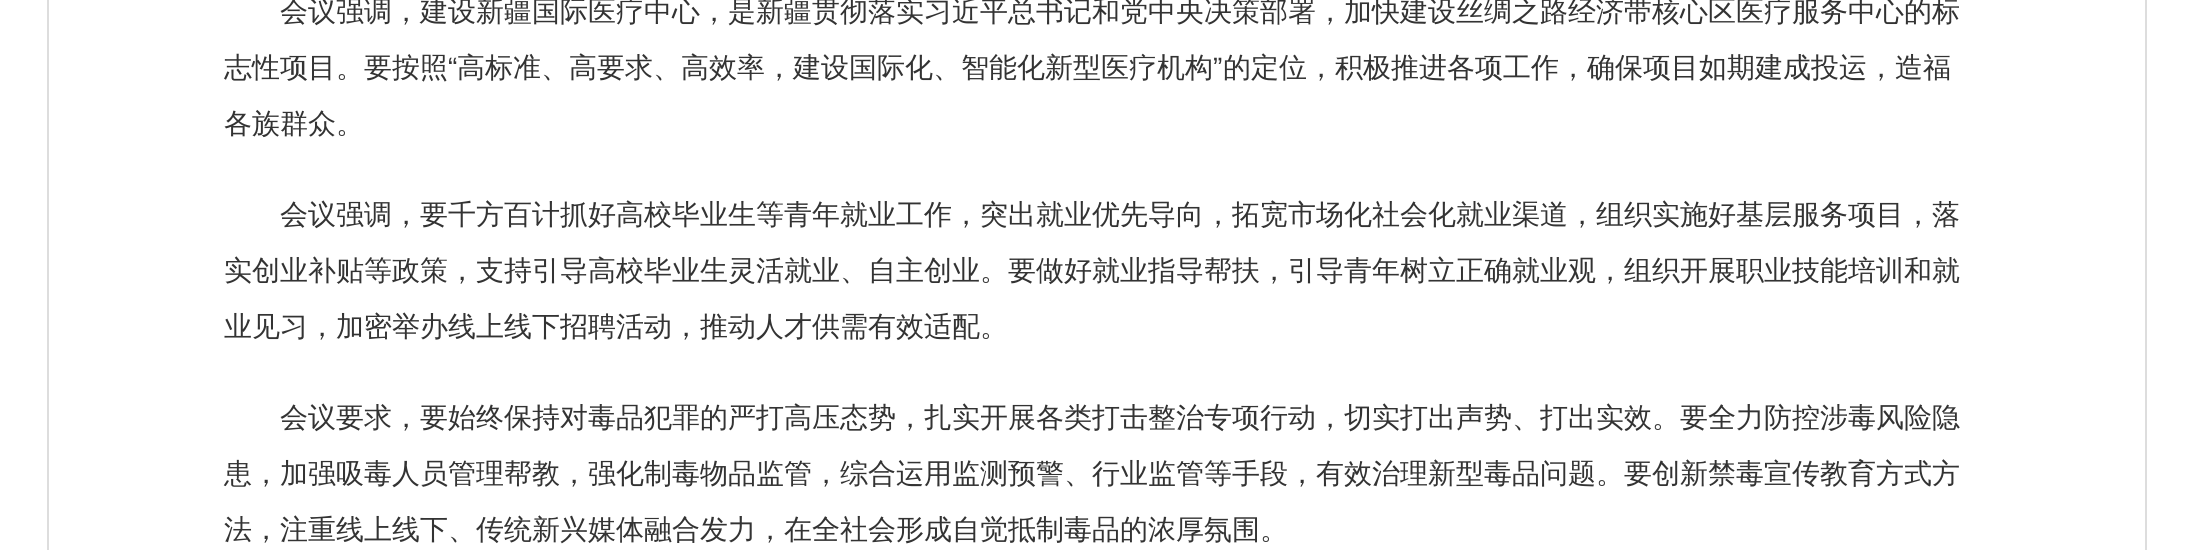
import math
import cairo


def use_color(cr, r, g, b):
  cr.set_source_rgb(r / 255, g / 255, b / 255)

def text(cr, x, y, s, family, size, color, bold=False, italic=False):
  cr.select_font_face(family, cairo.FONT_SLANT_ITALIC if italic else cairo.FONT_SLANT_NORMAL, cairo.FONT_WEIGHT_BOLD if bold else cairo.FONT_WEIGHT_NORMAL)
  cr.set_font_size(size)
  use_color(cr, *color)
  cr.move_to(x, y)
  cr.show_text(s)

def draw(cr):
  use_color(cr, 255, 255, 255)
  cr.paint()
  cr.rectangle(48, -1, 2098, 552)
  use_color(cr, 221, 221, 221)
  cr.stroke()
  text(cr, 280, 21, "会议强调，建设新疆国际医疗中心，是新疆贯彻落实习近平总书记和党中央决策部署，加快建设丝绸之路经济带核心区医疗服务中心的标", "WenQuanYi Zen Hei Medium", 28, (51, 51, 51))
  text(cr, 224, 77, "志性项目。要按照", "WenQuanYi Zen Hei Medium", 28, (51, 51, 51))
  text(cr, 448, 77, "“", "Liberation Sans", 28, (51, 51, 51))
  text(cr, 457, 77, "高标准、高要求、高效率，建设国际化、智能化新型医疗机构", "WenQuanYi Zen Hei Medium", 28, (51, 51, 51))
  text(cr, 1213, 77, "”", "Liberation Sans", 28, (51, 51, 51))
  text(cr, 1223, 77, "的定位，积极推进各项工作，确保项目如期建成投运，造福", "WenQuanYi Zen Hei Medium", 28, (51, 51, 51))
  text(cr, 224, 133, "各族群众。", "WenQuanYi Zen Hei Medium", 28, (51, 51, 51))
  text(cr, 280, 224, "会议强调，要千方百计抓好高校毕业生等青年就业工作，突出就业优先导向，拓宽市场化社会化就业渠道，组织实施好基层服务项目，落", "WenQuanYi Zen Hei Medium", 28, (51, 51, 51))
  text(cr, 224, 280, "实创业补贴等政策，支持引导高校毕业生灵活就业、自主创业。要做好就业指导帮扶，引导青年树立正确就业观，组织开展职业技能培训和就", "WenQuanYi Zen Hei Medium", 28, (51, 51, 51))
  text(cr, 224, 336, "业见习，加密举办线上线下招聘活动，推动人才供需有效适配。", "WenQuanYi Zen Hei Medium", 28, (51, 51, 51))
  text(cr, 280, 427, "会议要求，要始终保持对毒品犯罪的严打高压态势，扎实开展各类打击整治专项行动，切实打出声势、打出实效。要全力防控涉毒风险隐", "WenQuanYi Zen Hei Medium", 28, (51, 51, 51))
  text(cr, 224, 483, "患，加强吸毒人员管理帮教，强化制毒物品监管，综合运用监测预警、行业监管等手段，有效治理新型毒品问题。要创新禁毒宣传教育方式方", "WenQuanYi Zen Hei Medium", 28, (51, 51, 51))
  text(cr, 224, 539, "法，注重线上线下、传统新兴媒体融合发力，在全社会形成自觉抵制毒品的浓厚氛围。", "WenQuanYi Zen Hei Medium", 28, (51, 51, 51))


surface = cairo.ImageSurface(cairo.FORMAT_RGB24, 2193, 550)
cr = cairo.Context(surface)
options = cairo.FontOptions()
options.set_hint_metrics(cairo.HINT_METRICS_OFF)
options.set_hint_style(cairo.HINT_STYLE_NONE)
cr.set_font_options(options)
cr.set_miter_limit(4)
draw(cr)
surface.write_to_png("out.png")
